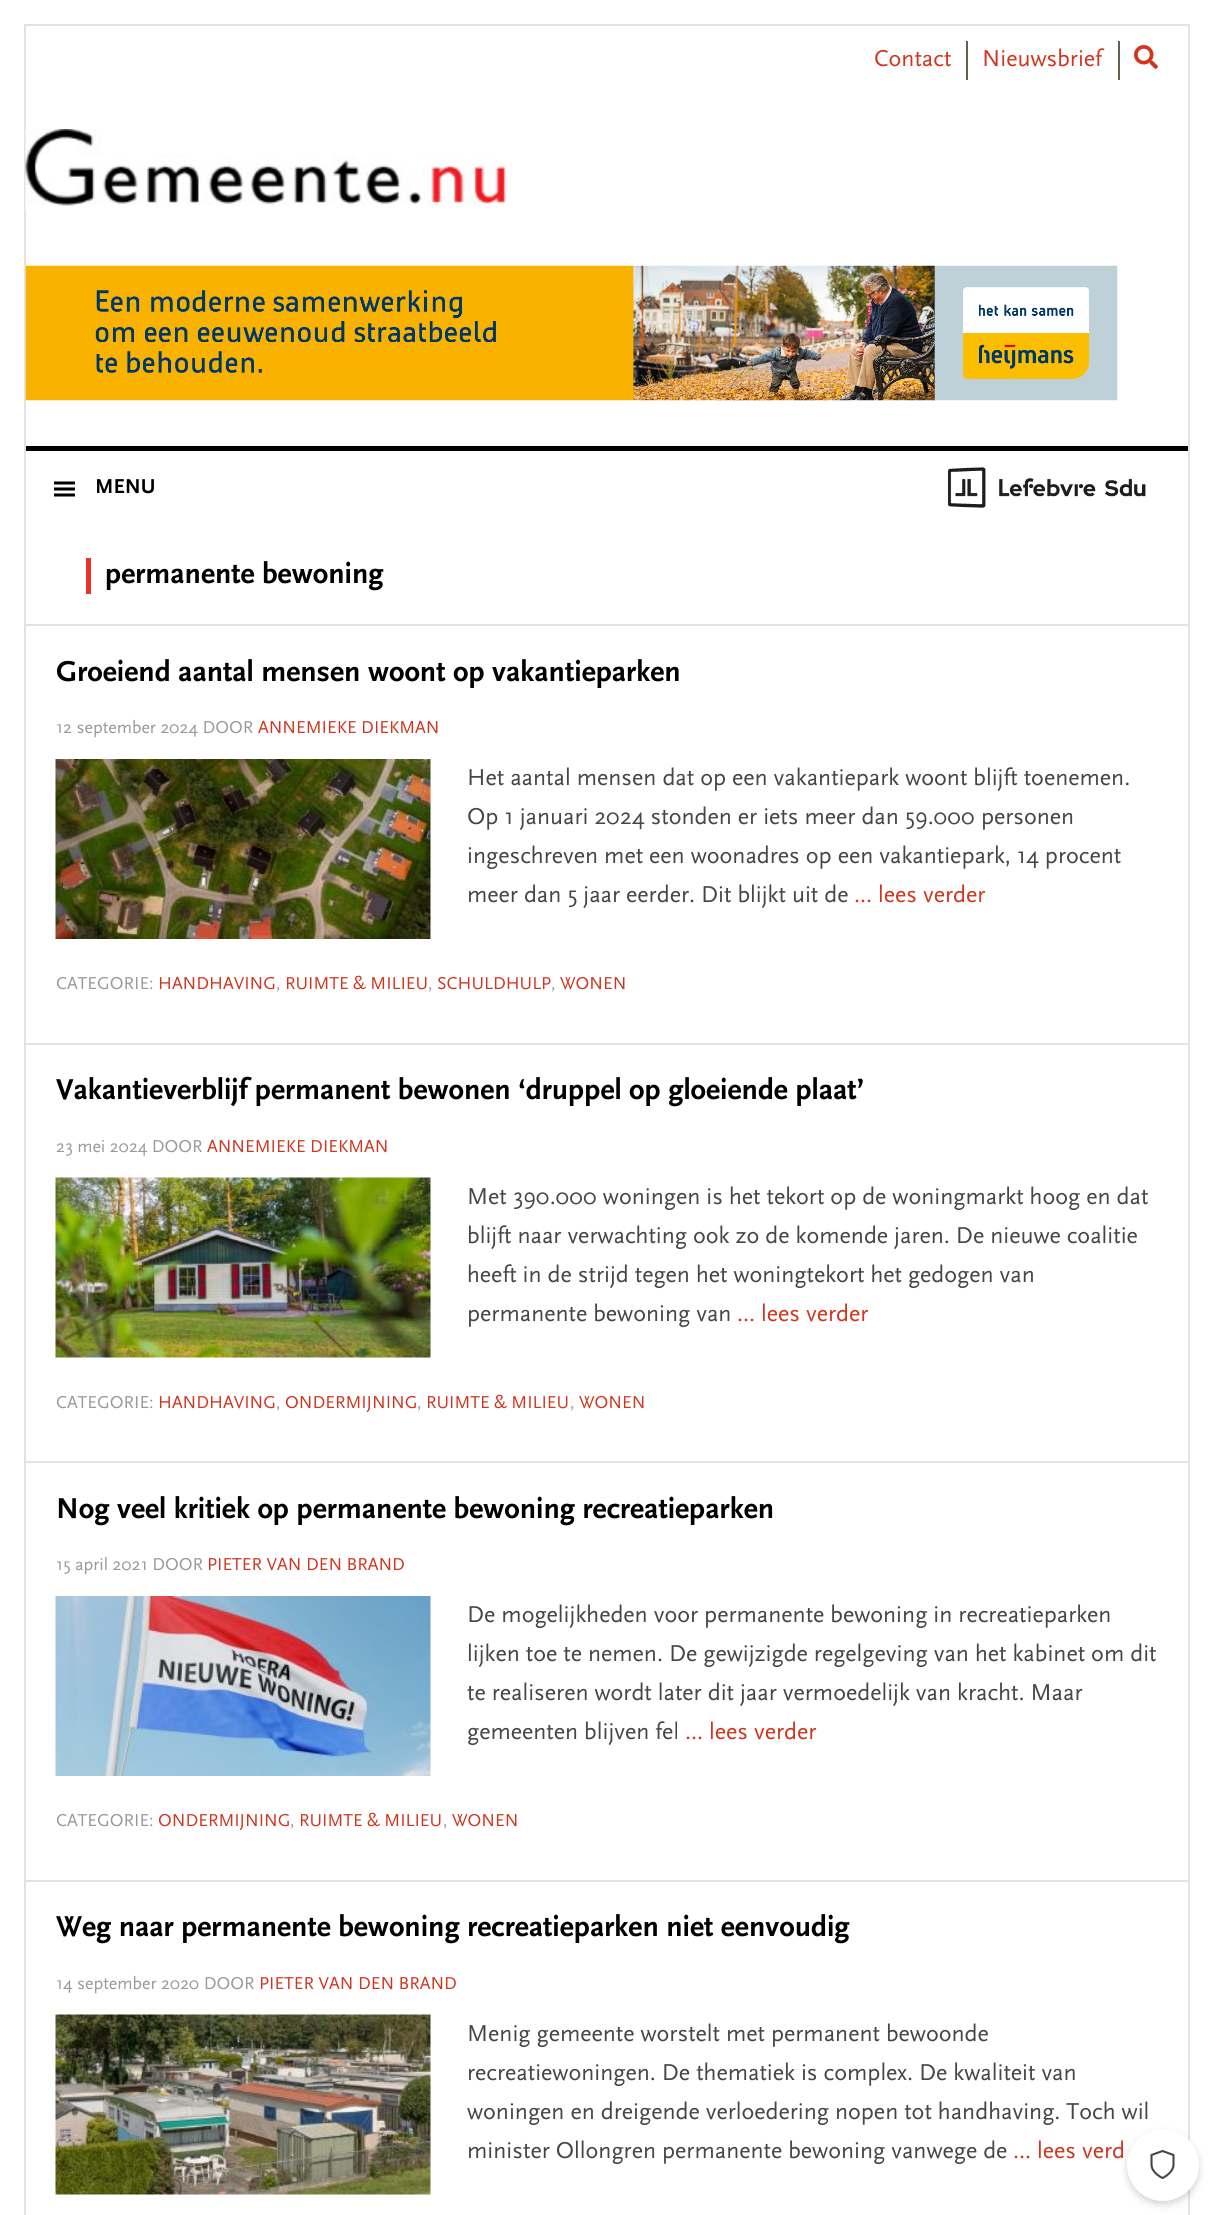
import math
import cairo


def use_color(cr, r, g, b):
  cr.set_source_rgb(r / 255, g / 255, b / 255)

def text(cr, x, y, s, family, size, color, bold=False, italic=False):
  cr.select_font_face(family, cairo.FONT_SLANT_ITALIC if italic else cairo.FONT_SLANT_NORMAL, cairo.FONT_WEIGHT_BOLD if bold else cairo.FONT_WEIGHT_NORMAL)
  cr.set_font_size(size)
  use_color(cr, *color)
  cr.move_to(x, y)
  cr.show_text(s)

def box(cr, x, y, w, h, *color):
  use_color(cr, *color)
  cr.rectangle(x, y, w, h)
  cr.fill()

def round_rect(cr, x, y, w, h, r):
  cr.new_sub_path()
  for i, (u, v) in enumerate([(x + w - r, y + h - r), (x + r, y + h - r), (x + r, y + r), (x + w - r, y + r)]):
    cr.arc(u, v, r, i * math.pi / 2, (i + 1) * math.pi / 2)
  cr.close_path()

def shadow(cr, x, y, w, h, r, blur, alpha):
  cr.push_group_with_content(cairo.CONTENT_ALPHA)
  cr.set_operator(cairo.OPERATOR_SOURCE)
  for i in range(15, -16, -2):
    e = blur * i / 6
    if min(w, h) + 2 * e > 0:
      cr.set_source_rgba(0, 0, 0, alpha * math.erfc((i - 1) / 8.5) / 2)
      round_rect(cr, x - e, y - e, w + 2 * e, h + 2 * e, max(0, min(r + e + blur * .6, min(w, h) / 2 + e)))
      cr.fill()
  cr.mask(cr.pop_group())

def picture(cr, path, x, y, w, h):
  cr.save()
  cr.set_source_surface(cairo.ImageSurface.create_from_png(path), x, y)
  cr.rectangle(x, y, w, h)
  cr.fill()
  cr.restore()

def draw(cr):
  use_color(cr, 255, 255, 255)
  cr.paint()
  cr.rectangle(25, 25, 1164, 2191)
  use_color(cr, 227, 227, 227)
  cr.stroke()
  box(cr, 966, 41, 2, 39, 103, 95, 82)
  box(cr, 1118, 41, 2, 39, 103, 95, 82)
  picture(cr, "img_01.png", 1134, 45, 24, 24)
  box(cr, 26, 446, 1162, 5, 0, 0, 0)
  picture(cr, "img_02.png", 25, 129, 481, 83)
  picture(cr, "img_03.png", 25, 265, 1093, 136)
  picture(cr, "img_04.png", 54, 481, 21, 16)
  picture(cr, "img_05.png", 947, 467, 199, 41)
  box(cr, 26, 624, 1162, 2, 227, 227, 227)
  box(cr, 86, 558, 5, 36, 238, 50, 36)
  box(cr, 26, 1043, 1162, 2, 227, 227, 227)
  picture(cr, "img_06.png", 55, 759, 376, 180)
  box(cr, 26, 1461, 1162, 2, 227, 227, 227)
  picture(cr, "img_07.png", 55, 1177, 376, 181)
  box(cr, 26, 1880, 1162, 2, 227, 227, 227)
  picture(cr, "img_08.png", 55, 1596, 376, 180)
  picture(cr, "img_09.png", 55, 2014, 376, 181)
  use_color(cr, 0, 0, 0)
  shadow(cr, 1127, 2132, 72, 72, 36, 3, 0.08)
  shadow(cr, 1127, 2133, 72, 72, 36, 4.5, 0.1)
  use_color(cr, 255, 255, 255)
  cr.arc(1163, 2165, 35, 0, 2 * math.pi)
  cr.fill_preserve()
  cr.stroke()
  cr.new_path()
  cr.move_to(1162.5, 2178)
  cr.curve_to(1162.5, 2178, 1173.5, 2173, 1173.5, 2164.5)
  cr.line_to(1173.5, 2155)
  cr.line_to(1162.5, 2151)
  cr.line_to(1151.5, 2155)
  cr.line_to(1151.5, 2164.5)
  cr.curve_to(1151.5, 2173, 1162.5, 2178, 1162.5, 2178)
  use_color(cr, 70, 70, 70)
  cr.set_line_width(2.1)
  cr.set_line_cap(cairo.LINE_CAP_ROUND)
  cr.set_line_join(cairo.LINE_JOIN_ROUND)
  cr.stroke()
  text(cr, 874, 66, "Contact", "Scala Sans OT", 24, (208, 54, 31))
  text(cr, 982, 66, "Nieuwsbrief", "Scala Sans OT", 24, (208, 54, 31))
  text(cr, 95, 493, "MENU", "Scala Sans OT", 21, (0, 0, 0), bold=True)
  text(cr, 105, 583, "permanente bewoning", "Scala Sans OT", 30, (0, 0, 0), bold=True)
  text(cr, 56, 681, "Groeiend aantal mensen woont op vakantieparken", "Scala Sans OT", 30, (0, 0, 0), bold=True)
  text(cr, 56, 733, "12 september 2024 DOOR", "Scala Sans OT", 18, (153, 153, 153))
  text(cr, 258, 733, "ANNEMIEKE DIEKMAN", "Scala Sans OT", 18, (208, 54, 31))
  text(cr, 467, 785, "Het aantal mensen dat op een vakantiepark woont blijft toenemen.", "Scala Sans OT", 24, (70, 70, 70))
  text(cr, 467, 824, "Op 1 januari 2024 stonden er iets meer dan 59.000 personen", "Scala Sans OT", 24, (70, 70, 70))
  text(cr, 467, 863, "ingeschreven met een woonadres op een vakantiepark, 14 procent", "Scala Sans OT", 24, (70, 70, 70))
  text(cr, 467, 902, "meer dan 5 jaar eerder. Dit blijkt uit de", "Scala Sans OT", 24, (70, 70, 70))
  text(cr, 854, 902, "... lees verder", "Scala Sans OT", 24, (208, 54, 31))
  text(cr, 56, 989, "CATEGORIE:", "Scala Sans OT", 18, (153, 153, 153))
  text(cr, 158, 989, "HANDHAVING", "Scala Sans OT", 18, (208, 54, 31))
  text(cr, 276, 989, ",", "Scala Sans OT", 18, (153, 153, 153))
  text(cr, 285, 989, "RUIMTE & MILIEU", "Scala Sans OT", 18, (208, 54, 31))
  text(cr, 428, 989, ",", "Scala Sans OT", 18, (153, 153, 153))
  text(cr, 437, 989, "SCHULDHULP", "Scala Sans OT", 18, (208, 54, 31))
  text(cr, 551, 989, ",", "Scala Sans OT", 18, (153, 153, 153))
  text(cr, 560, 989, "WONEN", "Scala Sans OT", 18, (208, 54, 31))
  text(cr, 56, 1099, "Vakantieverblijf permanent bewonen ‘druppel op gloeiende plaat’", "Scala Sans OT", 30, (0, 0, 0), bold=True)
  text(cr, 56, 1152, "23 mei 2024 DOOR", "Scala Sans OT", 18, (153, 153, 153))
  text(cr, 207, 1152, "ANNEMIEKE DIEKMAN", "Scala Sans OT", 18, (208, 54, 31))
  text(cr, 467, 1204, "Met 390.000 woningen is het tekort op de woningmarkt hoog en dat", "Scala Sans OT", 24, (70, 70, 70))
  text(cr, 467, 1243, "blijft naar verwachting ook zo de komende jaren. De nieuwe coalitie", "Scala Sans OT", 24, (70, 70, 70))
  text(cr, 467, 1282, "heeft in de strijd tegen het woningtekort het gedogen van", "Scala Sans OT", 24, (70, 70, 70))
  text(cr, 467, 1321, "permanente bewoning van", "Scala Sans OT", 24, (70, 70, 70))
  text(cr, 737, 1321, "... lees verder", "Scala Sans OT", 24, (208, 54, 31))
  text(cr, 56, 1408, "CATEGORIE:", "Scala Sans OT", 18, (153, 153, 153))
  text(cr, 158, 1408, "HANDHAVING", "Scala Sans OT", 18, (208, 54, 31))
  text(cr, 276, 1408, ",", "Scala Sans OT", 18, (153, 153, 153))
  text(cr, 285, 1408, "ONDERMIJNING", "Scala Sans OT", 18, (208, 54, 31))
  text(cr, 417, 1408, ",", "Scala Sans OT", 18, (153, 153, 153))
  text(cr, 426, 1408, "RUIMTE & MILIEU", "Scala Sans OT", 18, (208, 54, 31))
  text(cr, 570, 1408, ",", "Scala Sans OT", 18, (153, 153, 153))
  text(cr, 579, 1408, "WONEN", "Scala Sans OT", 18, (208, 54, 31))
  text(cr, 56, 1518, "Nog veel kritiek op permanente bewoning recreatieparken", "Scala Sans OT", 30, (0, 0, 0), bold=True)
  text(cr, 56, 1570, "15 april 2021 DOOR", "Scala Sans OT", 18, (153, 153, 153))
  text(cr, 207, 1570, "PIETER VAN DEN BRAND", "Scala Sans OT", 18, (208, 54, 31))
  text(cr, 467, 1622, "De mogelijkheden voor permanente bewoning in recreatieparken", "Scala Sans OT", 24, (70, 70, 70))
  text(cr, 467, 1661, "lijken toe te nemen. De gewijzigde regelgeving van het kabinet om dit", "Scala Sans OT", 24, (70, 70, 70))
  text(cr, 467, 1700, "te realiseren wordt later dit jaar vermoedelijk van kracht. Maar", "Scala Sans OT", 24, (70, 70, 70))
  text(cr, 467, 1739, "gemeenten blijven fel", "Scala Sans OT", 24, (70, 70, 70))
  text(cr, 685, 1739, "... lees verder", "Scala Sans OT", 24, (208, 54, 31))
  text(cr, 56, 1826, "CATEGORIE:", "Scala Sans OT", 18, (153, 153, 153))
  text(cr, 158, 1826, "ONDERMIJNING", "Scala Sans OT", 18, (208, 54, 31))
  text(cr, 290, 1826, ",", "Scala Sans OT", 18, (153, 153, 153))
  text(cr, 299, 1826, "RUIMTE & MILIEU", "Scala Sans OT", 18, (208, 54, 31))
  text(cr, 443, 1826, ",", "Scala Sans OT", 18, (153, 153, 153))
  text(cr, 452, 1826, "WONEN", "Scala Sans OT", 18, (208, 54, 31))
  text(cr, 56, 1936, "Weg naar permanente bewoning recreatieparken niet eenvoudig", "Scala Sans OT", 30, (0, 0, 0), bold=True)
  text(cr, 56, 1989, "14 september 2020 DOOR", "Scala Sans OT", 18, (153, 153, 153))
  text(cr, 259, 1989, "PIETER VAN DEN BRAND", "Scala Sans OT", 18, (208, 54, 31))
  text(cr, 467, 2041, "Menig gemeente worstelt met permanent bewoonde", "Scala Sans OT", 24, (70, 70, 70))
  text(cr, 467, 2080, "recreatiewoningen. De thematiek is complex. De kwaliteit van", "Scala Sans OT", 24, (70, 70, 70))
  text(cr, 467, 2119, "woningen en dreigende verloedering nopen tot handhaving. Toch wil", "Scala Sans OT", 24, (70, 70, 70))
  text(cr, 467, 2158, "minister Ollongren permanente bewoning vanwege de", "Scala Sans OT", 24, (70, 70, 70))
  text(cr, 1013, 2158, "... lees verd", "Scala Sans OT", 24, (208, 54, 31))


surface = cairo.ImageSurface(cairo.FORMAT_RGB24, 1213, 2215)
cr = cairo.Context(surface)
options = cairo.FontOptions()
options.set_hint_metrics(cairo.HINT_METRICS_OFF)
options.set_hint_style(cairo.HINT_STYLE_NONE)
cr.set_font_options(options)
cr.set_miter_limit(4)
draw(cr)
surface.write_to_png("out.png")
